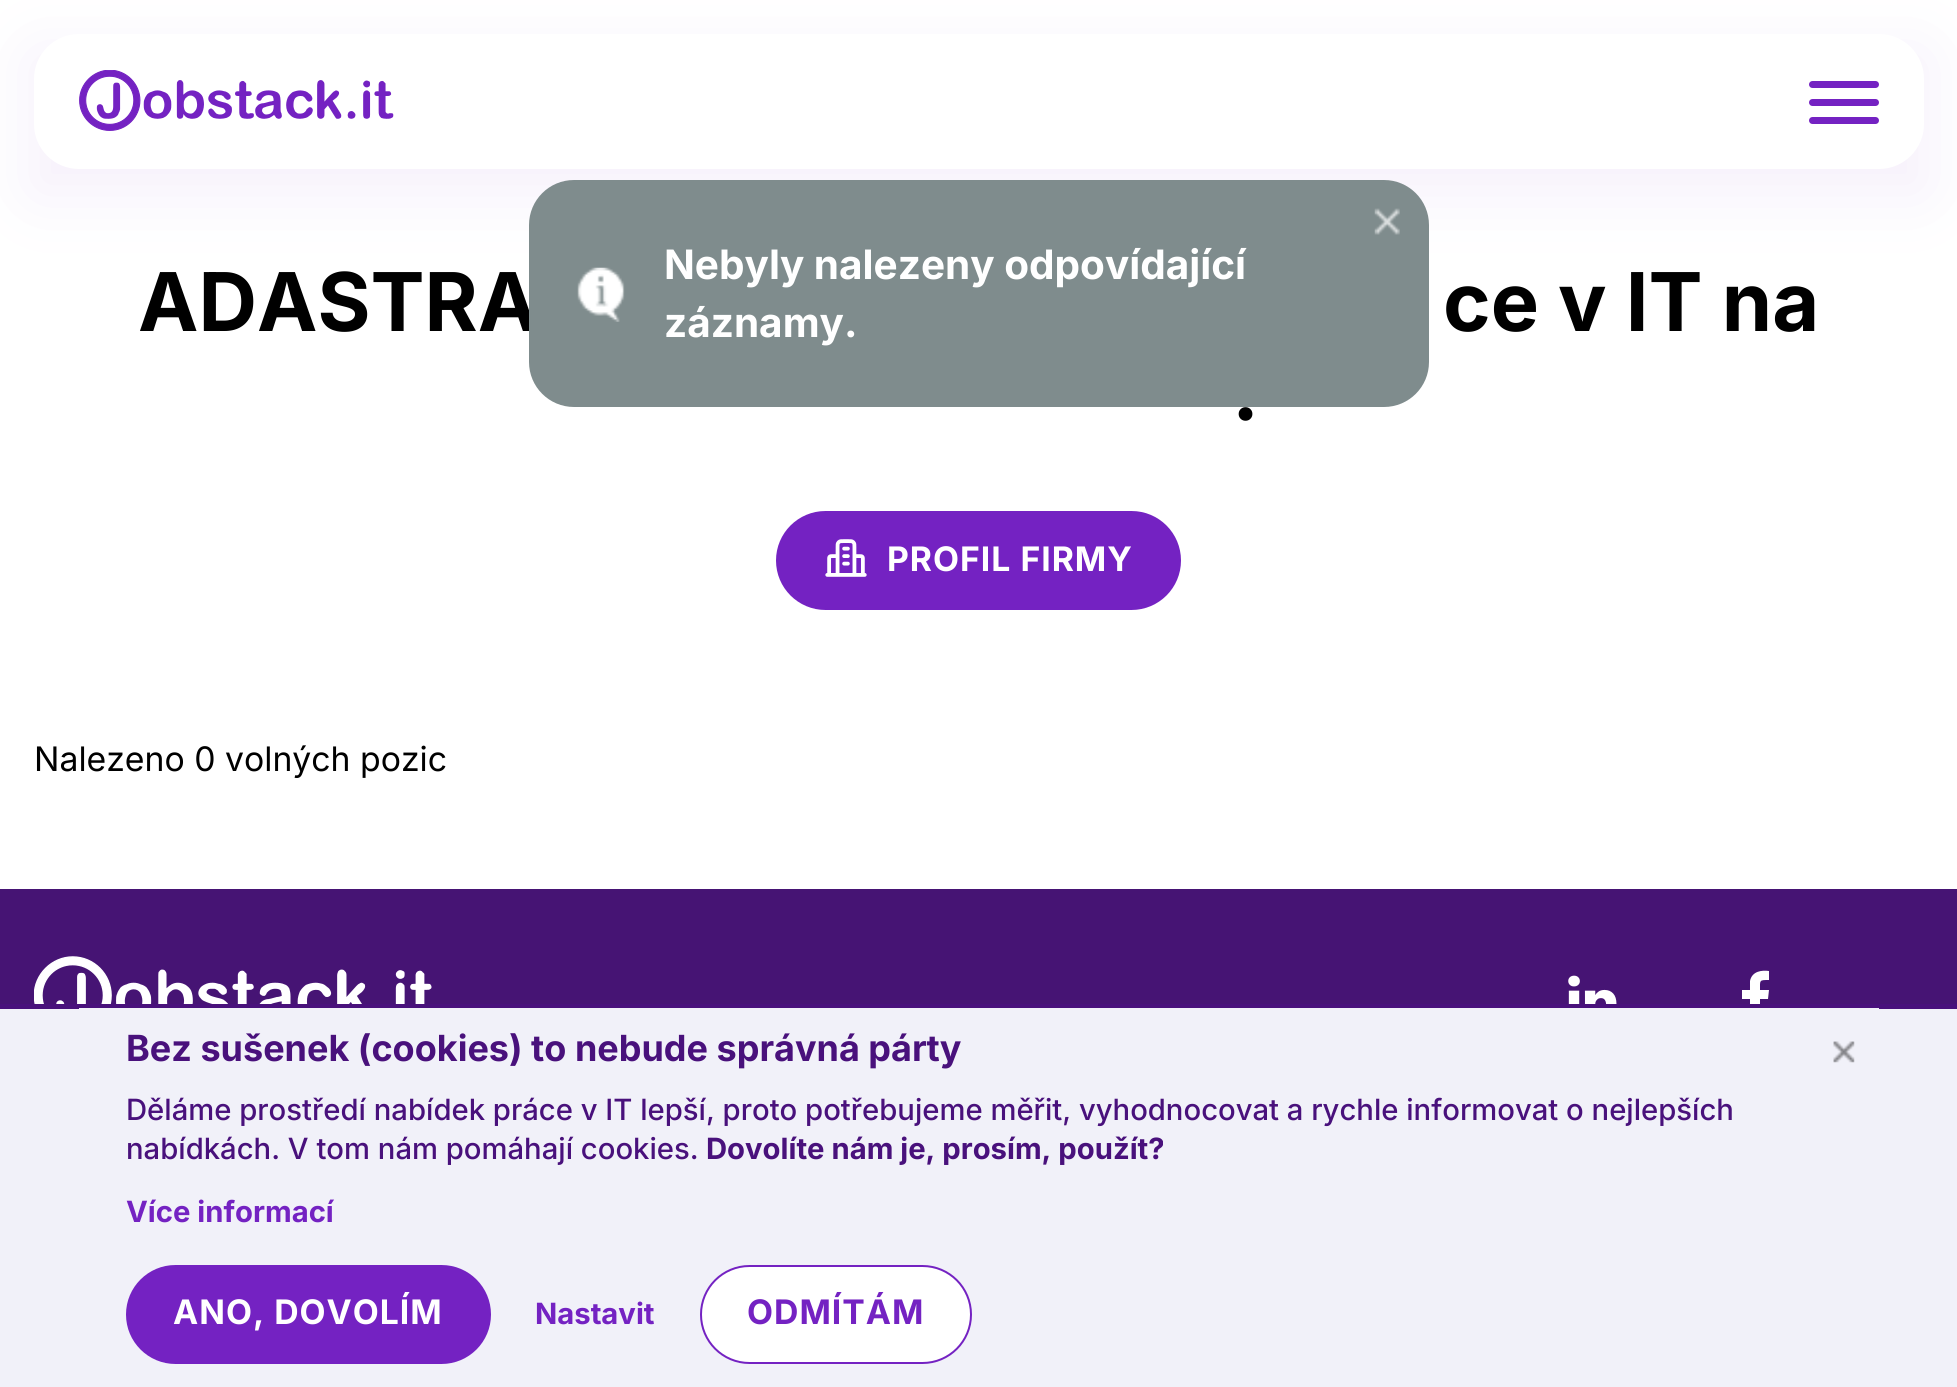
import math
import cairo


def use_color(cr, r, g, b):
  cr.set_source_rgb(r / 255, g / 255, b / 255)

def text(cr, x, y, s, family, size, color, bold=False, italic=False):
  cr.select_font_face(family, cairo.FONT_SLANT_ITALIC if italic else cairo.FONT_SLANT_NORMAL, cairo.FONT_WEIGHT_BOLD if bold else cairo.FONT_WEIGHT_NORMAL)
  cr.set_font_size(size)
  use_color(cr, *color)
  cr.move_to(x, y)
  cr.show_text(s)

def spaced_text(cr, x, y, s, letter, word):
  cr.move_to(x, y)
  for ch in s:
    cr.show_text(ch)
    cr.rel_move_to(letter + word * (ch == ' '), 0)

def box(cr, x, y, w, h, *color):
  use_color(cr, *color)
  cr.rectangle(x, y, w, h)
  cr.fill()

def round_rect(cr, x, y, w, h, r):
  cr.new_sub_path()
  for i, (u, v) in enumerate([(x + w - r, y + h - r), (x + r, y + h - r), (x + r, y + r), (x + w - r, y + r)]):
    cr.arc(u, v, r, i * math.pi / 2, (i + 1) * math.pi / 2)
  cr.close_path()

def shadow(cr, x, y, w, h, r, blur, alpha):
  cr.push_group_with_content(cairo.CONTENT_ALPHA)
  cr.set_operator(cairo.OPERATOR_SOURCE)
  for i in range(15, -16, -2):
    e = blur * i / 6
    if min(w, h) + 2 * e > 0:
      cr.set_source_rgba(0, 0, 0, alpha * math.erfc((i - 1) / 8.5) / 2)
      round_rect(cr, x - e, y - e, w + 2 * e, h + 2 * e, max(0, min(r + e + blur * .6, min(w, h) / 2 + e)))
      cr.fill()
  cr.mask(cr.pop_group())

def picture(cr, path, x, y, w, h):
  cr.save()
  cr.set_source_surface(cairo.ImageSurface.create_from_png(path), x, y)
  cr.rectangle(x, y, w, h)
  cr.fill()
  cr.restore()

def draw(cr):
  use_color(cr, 255, 255, 255)
  cr.paint()
  use_color(cr, 235, 223, 247)
  shadow(cr, 34, 56, 1890, 135, 0, 34, 0.5)
  use_color(cr, 255, 255, 255)
  round_rect(cr, 34, 34, 1890, 135, 45)
  cr.fill()
  picture(cr, "img_03.png", 79, 70, 315, 61)
  use_color(cr, 116, 34, 194)
  cr.new_path()
  cr.move_to(1812.5, 99)
  cr.line_to(1845, 99)
  cr.line_to(1845, 106)
  cr.line_to(1812.5, 106)
  cr.curve_to(1810.5, 106, 1809, 104.5, 1809, 102.5)
  cr.curve_to(1809, 100.5, 1810.5, 99, 1812.5, 99)
  cr.close_path()
  cr.fill()
  cr.new_path()
  cr.move_to(1812.5, 81)
  cr.line_to(1845, 81)
  cr.line_to(1845, 88)
  cr.line_to(1812.5, 88)
  cr.curve_to(1810.5, 88, 1809, 86.5, 1809, 84.5)
  cr.curve_to(1809, 82.5, 1810.5, 81, 1812.5, 81)
  cr.close_path()
  cr.fill()
  cr.new_path()
  cr.move_to(1812.5, 117)
  cr.line_to(1845, 117)
  cr.line_to(1845, 124)
  cr.line_to(1812.5, 124)
  cr.curve_to(1810.5, 124, 1809, 122.5, 1809, 120.5)
  cr.curve_to(1809, 118.5, 1810.5, 117, 1812.5, 117)
  cr.close_path()
  cr.fill()
  cr.new_path()
  cr.move_to(1845, 99)
  cr.line_to(1875.5, 99)
  cr.curve_to(1877.5, 99, 1879, 100.5, 1879, 102.5)
  cr.curve_to(1879, 104.5, 1877.5, 106, 1875.5, 106)
  cr.line_to(1845, 106)
  cr.close_path()
  cr.fill()
  cr.new_path()
  cr.move_to(1845, 81)
  cr.line_to(1875.5, 81)
  cr.curve_to(1877.5, 81, 1879, 82.5, 1879, 84.5)
  cr.curve_to(1879, 86.5, 1877.5, 88, 1875.5, 88)
  cr.line_to(1845, 88)
  cr.close_path()
  cr.fill()
  cr.new_path()
  cr.move_to(1845, 117)
  cr.line_to(1875.5, 117)
  cr.curve_to(1877.5, 117, 1879, 118.5, 1879, 120.5)
  cr.curve_to(1879, 122.5, 1877.5, 124, 1875.5, 124)
  cr.line_to(1845, 124)
  cr.close_path()
  cr.fill()
  round_rect(cr, 776, 511, 405, 99, 49.5)
  cr.fill()
  picture(cr, "img_04.png", 825, 539, 42, 38)
  box(cr, 0, 889, 1957, 115, 70, 20, 116)
  picture(cr, "img_05.png", 34, 956, 398, 48)
  picture(cr, "img_06.png", 1568, 975, 49, 29)
  use_color(cr, 255, 255, 255)
  cr.new_path()
  cr.move_to(1769, 971)
  cr.line_to(1769, 980)
  cr.curve_to(1759, 980, 1760, 980, 1760, 990)
  cr.line_to(1769, 990)
  cr.line_to(1768, 999)
  cr.line_to(1760, 999)
  cr.line_to(1760, 1023)
  cr.line_to(1750, 1023)
  cr.line_to(1750, 999)
  cr.line_to(1742, 999)
  cr.line_to(1742, 990)
  cr.line_to(1750, 990)
  cr.line_to(1750, 981)
  cr.curve_to(1752, 971, 1762, 970, 1769, 971)
  cr.close_path()
  cr.fill()
  box(cr, 0, 1009, 1957, 378, 241, 241, 249)
  box(cr, 0, 1004, 1957, 5, 73, 17, 124)
  box(cr, 79, 1008, 1800, 1, 241, 241, 249)
  picture(cr, "img_07.png", 1833, 1041, 22, 22)
  use_color(cr, 116, 34, 194)
  round_rect(cr, 126, 1265, 365, 99, 49.5)
  cr.fill()
  use_color(cr, 255, 255, 255)
  round_rect(cr, 701, 1266, 270, 97, 48.5)
  cr.fill_preserve()
  use_color(cr, 116, 34, 194)
  cr.stroke()
  text(cr, 138, 331, "ADASTRA", "Inter", 81, (0, 0, 0), bold=True)
  use_color(cr, 127, 140, 141)
  round_rect(cr, 529, 180, 900, 227, 45)
  cr.fill()
  picture(cr, "img_02.png", 1374, 208, 26, 27)
  text(cr, 664, 337, "záznamy.", "Inter", 40.5, (255, 255, 255), bold=True)
  text(cr, 664, 279, "Nebyly nalezeny odpovídající", "Inter", 40.5, (255, 255, 255), bold=True)
  picture(cr, "img_01.png", 577, 267, 48, 55)
  text(cr, 1443, 331, "ce v IT na", "Inter", 81, (0, 0, 0), bold=True)
  text(cr, 1232, 420, ".", "Inter", 81, (0, 0, 0), bold=True)
  cr.set_font_size(33.75)
  use_color(cr, 255, 255, 255)
  spaced_text(cr, 887, 571, "PROFIL FIRMY", 1, 0)
  text(cr, 34, 771, "Nalezeno 0 volných pozic", "Inter", 33.75, (0, 0, 0))
  text(cr, 126, 1061, "Bez sušenek (cookies) to nebude správná párty", "Inter", 36, (73, 17, 124), bold=True)
  text(cr, 126, 1120, "Děláme prostředí nabídek práce v IT lepší, proto potřebujeme měřit, vyhodnocovat a rychle informovat o nejlepších", "Inter Medium", 29.25, (73, 17, 124))
  text(cr, 126, 1159, "nabídkách. V tom nám pomáhají cookies.", "Inter Medium", 29.25, (73, 17, 124))
  text(cr, 706, 1159, "Dovolíte nám je, prosím, použít?", "Inter", 29.25, (73, 17, 124), bold=True)
  text(cr, 126, 1222, "Více informací", "Inter", 29.25, (116, 34, 194), bold=True)
  cr.set_font_size(33.75)
  use_color(cr, 255, 255, 255)
  spaced_text(cr, 173, 1324, "ANO, DOVOLÍM", 1, 0)
  text(cr, 535, 1324, "Nastavit", "Inter", 29.25, (116, 34, 194), bold=True)
  cr.set_font_size(33.75)
  spaced_text(cr, 747, 1324, "ODMÍTÁM", 1, 0)


surface = cairo.ImageSurface(cairo.FORMAT_RGB24, 1957, 1387)
cr = cairo.Context(surface)
options = cairo.FontOptions()
options.set_hint_metrics(cairo.HINT_METRICS_OFF)
options.set_hint_style(cairo.HINT_STYLE_NONE)
cr.set_font_options(options)
cr.set_miter_limit(4)
draw(cr)
surface.write_to_png("out.png")
